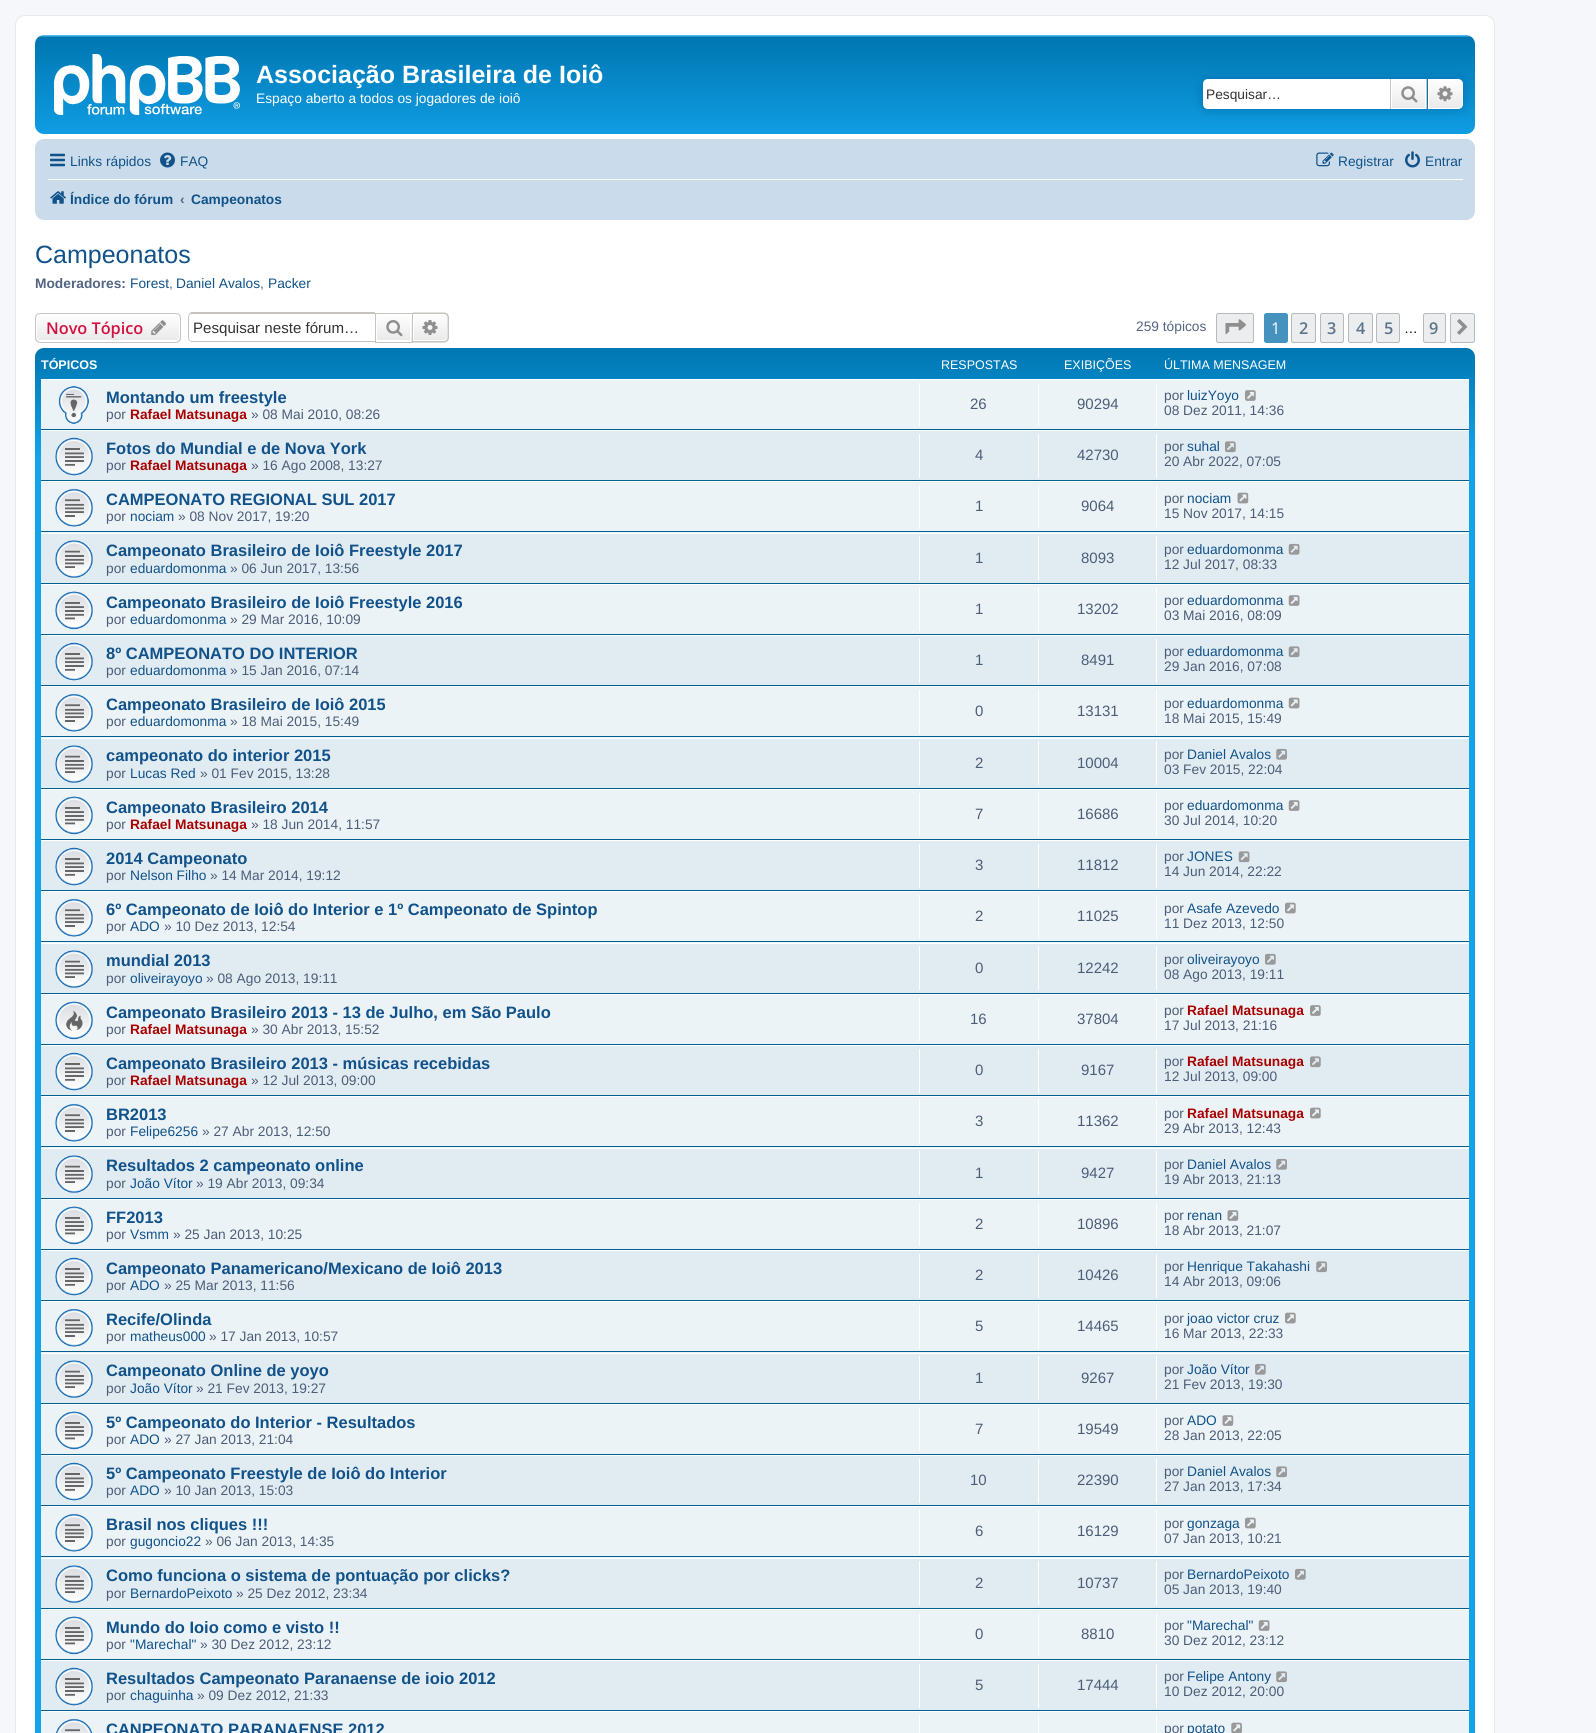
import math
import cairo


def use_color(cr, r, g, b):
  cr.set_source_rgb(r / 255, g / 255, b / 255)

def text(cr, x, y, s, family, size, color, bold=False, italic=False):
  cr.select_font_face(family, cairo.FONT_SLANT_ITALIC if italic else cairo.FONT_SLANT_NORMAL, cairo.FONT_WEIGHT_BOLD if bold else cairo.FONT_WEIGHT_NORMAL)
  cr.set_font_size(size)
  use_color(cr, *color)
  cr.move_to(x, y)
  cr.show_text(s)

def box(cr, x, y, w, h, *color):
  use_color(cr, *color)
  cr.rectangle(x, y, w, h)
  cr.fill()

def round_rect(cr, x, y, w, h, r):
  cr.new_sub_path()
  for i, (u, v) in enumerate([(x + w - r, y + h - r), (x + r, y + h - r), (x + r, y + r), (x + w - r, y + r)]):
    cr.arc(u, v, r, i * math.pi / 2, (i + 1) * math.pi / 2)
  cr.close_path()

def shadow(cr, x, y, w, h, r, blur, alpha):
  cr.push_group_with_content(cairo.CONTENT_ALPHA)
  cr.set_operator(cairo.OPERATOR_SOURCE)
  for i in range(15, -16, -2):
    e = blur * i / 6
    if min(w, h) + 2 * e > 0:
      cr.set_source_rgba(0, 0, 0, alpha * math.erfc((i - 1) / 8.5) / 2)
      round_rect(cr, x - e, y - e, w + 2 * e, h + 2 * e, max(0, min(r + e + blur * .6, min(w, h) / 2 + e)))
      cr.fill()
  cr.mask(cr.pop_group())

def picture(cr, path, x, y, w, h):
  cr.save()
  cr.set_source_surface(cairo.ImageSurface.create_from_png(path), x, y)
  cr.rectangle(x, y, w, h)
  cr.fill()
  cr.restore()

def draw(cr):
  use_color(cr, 245, 247, 250)
  cr.paint()
  use_color(cr, 255, 255, 255)
  round_rect(cr, 15.5, 15.5, 1479, 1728, 9.5)
  cr.fill_preserve()
  use_color(cr, 230, 233, 237)
  cr.set_line_width(1)
  cr.stroke()
  gradient = cairo.LinearGradient(755, 35, 755, 150)
  gradient.add_color_stop_rgba(0, 0.416, 0.808, 1, 1)
  gradient.add_color_stop_rgba(0.02, 0, 0.463, 0.694, 1)
  gradient.add_color_stop_rgba(1, 0.071, 0.639, 0.922, 1)
  cr.set_source(gradient)
  round_rect(cr, 35, 35, 1440, 99, 9)
  cr.fill()
  picture(cr, "img_01.png", 54, 54, 186, 61)
  use_color(cr, 0, 117, 176)
  shadow(cr, 1203, 79, 260, 30, 5, 6, 1)
  use_color(cr, 255, 255, 255)
  cr.new_path()
  cr.move_to(1208, 79)
  cr.line_to(1390, 79)
  cr.line_to(1390, 109)
  cr.line_to(1208, 109)
  cr.curve_to(1205, 109, 1203, 107, 1203, 104)
  cr.line_to(1203, 84)
  cr.curve_to(1203, 81, 1205, 79, 1208, 79)
  cr.close_path()
  cr.fill()
  gradient = cairo.LinearGradient(1409, 79, 1409, 109)
  gradient.add_color_stop_rgba(0, 1, 1, 1, 1)
  gradient.add_color_stop_rgba(1, 0.914, 0.914, 0.914, 1)
  cr.set_source(gradient)
  cr.rectangle(1392, 80, 33, 28)
  cr.fill()
  cr.rectangle(1391.5, 79.5, 34, 29)
  use_color(cr, 255, 255, 255)
  cr.stroke()
  box(cr, 1426, 79, 1, 30, 199, 195, 191)
  box(cr, 1390, 79, 1, 30, 199, 195, 191)
  picture(cr, "img_02.png", 1401, 86, 17, 17)
  gradient = cairo.LinearGradient(1445, 79, 1445, 109)
  gradient.add_color_stop_rgba(0, 1, 1, 1, 1)
  gradient.add_color_stop_rgba(1, 0.914, 0.914, 0.914, 1)
  cr.set_source(gradient)
  cr.new_path()
  cr.move_to(1428.5, 79.5)
  cr.line_to(1458, 79.5)
  cr.curve_to(1460.5, 79.5, 1462.5, 81.5, 1462.5, 84)
  cr.line_to(1462.5, 104)
  cr.curve_to(1462.5, 106.5, 1460.5, 108.5, 1458, 108.5)
  cr.line_to(1428.5, 108.5)
  cr.close_path()
  cr.fill_preserve()
  use_color(cr, 255, 255, 255)
  cr.stroke()
  picture(cr, "img_03.png", 1437, 86, 16, 16)
  use_color(cr, 202, 220, 235)
  round_rect(cr, 35, 139, 1440, 81, 9)
  cr.fill()
  picture(cr, "img_04.png", 50, 153, 15, 14)
  picture(cr, "img_05.png", 160, 152, 15, 16)
  picture(cr, "img_06.png", 1316, 152, 18, 15)
  picture(cr, "img_07.png", 1405, 151, 15, 17)
  box(cr, 48, 179, 1415, 1, 255, 255, 255)
  picture(cr, "img_08.png", 50, 191, 16, 13)
  cr.save()
  round_rect(cr, 35, 313, 146, 30, 5)
  cr.clip()
  gradient = cairo.LinearGradient(108, 314, 108, 341)
  gradient.add_color_stop_rgba(0, 1, 1, 1, 1)
  gradient.add_color_stop_rgba(1, 0.914, 0.914, 0.914, 1)
  cr.set_source(gradient)
  cr.rectangle(35, 314, 146, 27)
  cr.fill()
  cr.restore()
  round_rect(cr, 36.5, 314.5, 143, 26, 3.5)
  cr.stroke()
  round_rect(cr, 35.5, 313.5, 145, 29, 4.5)
  use_color(cr, 199, 195, 191)
  cr.stroke()
  picture(cr, "img_09.png", 151, 320, 15, 15)
  cr.set_fill_rule(cairo.FILL_RULE_EVEN_ODD)
  cr.new_path()
  cr.move_to(192, 312)
  cr.line_to(375, 312)
  cr.line_to(375, 342)
  cr.line_to(192, 342)
  cr.curve_to(190, 342, 188, 340, 188, 338)
  cr.line_to(188, 318)
  cr.curve_to(188, 315, 190, 312, 192, 312)
  cr.close_path()
  cr.move_to(192, 314)
  cr.line_to(375, 314)
  cr.line_to(375, 341)
  cr.line_to(192, 341)
  cr.curve_to(190, 341, 189, 340, 189, 338)
  cr.line_to(189, 318)
  cr.curve_to(189, 315, 190, 314, 192, 314)
  cr.close_path()
  cr.fill()
  gradient = cairo.LinearGradient(394, 314, 394, 341)
  gradient.add_color_stop_rgba(0, 1, 1, 1, 1)
  gradient.add_color_stop_rgba(1, 0.914, 0.914, 0.914, 1)
  cr.set_source(gradient)
  cr.rectangle(377, 317, 35, 24)
  cr.fill()
  cr.rectangle(376.5, 314.5, 34, 26)
  use_color(cr, 255, 255, 255)
  cr.stroke()
  cr.rectangle(375.5, 313.5, 37, 29)
  use_color(cr, 199, 195, 191)
  cr.stroke()
  picture(cr, "img_10.png", 386, 320, 17, 17)
  gradient = cairo.LinearGradient(430, 314, 430, 341)
  gradient.add_color_stop_rgba(0, 1, 1, 1, 1)
  gradient.add_color_stop_rgba(1, 0.914, 0.914, 0.914, 1)
  cr.set_source(gradient)
  cr.new_path()
  cr.move_to(413.5, 314.5)
  cr.line_to(444, 314.5)
  cr.curve_to(446, 314.5, 447.5, 316, 447.5, 318)
  cr.line_to(447.5, 337)
  cr.curve_to(447.5, 339, 446, 340.5, 444, 340.5)
  cr.line_to(413.5, 340.5)
  cr.close_path()
  cr.fill_preserve()
  use_color(cr, 255, 255, 255)
  cr.stroke()
  use_color(cr, 199, 195, 191)
  cr.new_path()
  cr.move_to(412.5, 312.5)
  cr.line_to(444, 312.5)
  cr.curve_to(446.5, 312.5, 449, 314.5, 449, 317.5)
  cr.line_to(449, 337.5)
  cr.curve_to(449, 340.5, 446.5, 342.5, 444, 342.5)
  cr.line_to(412.5, 342.5)
  cr.close_path()
  cr.move_to(412.5, 314)
  cr.line_to(444, 314)
  cr.curve_to(446, 314, 447.5, 315.5, 447.5, 317.5)
  cr.line_to(447.5, 337.5)
  cr.curve_to(447.5, 339.5, 446, 341, 444, 341)
  cr.line_to(412.5, 341)
  cr.close_path()
  cr.fill()
  picture(cr, "img_11.png", 422, 320, 16, 15)
  use_color(cr, 236, 237, 238)
  round_rect(cr, 1216.5, 313.5, 37, 29, 2)
  cr.fill_preserve()
  use_color(cr, 180, 186, 192)
  cr.stroke()
  picture(cr, "img_12.png", 1225, 319, 21, 16)
  use_color(cr, 70, 146, 191)
  round_rect(cr, 1264.5, 313.5, 23, 29, 2)
  cr.fill_preserve()
  cr.stroke()
  use_color(cr, 236, 237, 238)
  round_rect(cr, 1291.5, 313.5, 24, 29, 2)
  cr.fill_preserve()
  use_color(cr, 180, 186, 192)
  cr.stroke()
  use_color(cr, 236, 237, 238)
  round_rect(cr, 1320.5, 313.5, 23, 29, 2)
  cr.fill_preserve()
  use_color(cr, 180, 186, 192)
  cr.stroke()
  use_color(cr, 236, 237, 238)
  round_rect(cr, 1348.5, 313.5, 24, 29, 2)
  cr.fill_preserve()
  use_color(cr, 180, 186, 192)
  cr.stroke()
  use_color(cr, 236, 237, 238)
  round_rect(cr, 1376.5, 313.5, 23, 29, 2)
  cr.fill_preserve()
  use_color(cr, 180, 186, 192)
  cr.stroke()
  use_color(cr, 236, 237, 238)
  round_rect(cr, 1423.5, 313.5, 22, 29, 2)
  cr.fill_preserve()
  use_color(cr, 180, 186, 192)
  cr.stroke()
  use_color(cr, 236, 237, 238)
  round_rect(cr, 1450.5, 313.5, 24, 29, 2)
  cr.fill_preserve()
  use_color(cr, 180, 186, 192)
  cr.stroke()
  picture(cr, "img_13.png", 1457, 319, 11, 16)
  gradient = cairo.LinearGradient(755, 347, 755, 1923)
  gradient.add_color_stop_rgba(0, 0.416, 0.808, 1, 1)
  gradient.add_color_stop_rgba(0, 0, 0.463, 0.694, 1)
  gradient.add_color_stop_rgba(0.07, 0.071, 0.639, 0.922, 1)
  gradient.add_color_stop_rgba(1, 0.071, 0.639, 0.922, 1)
  cr.set_source(gradient)
  round_rect(cr, 35, 348, 1440, 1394, 9)
  cr.fill()
  box(cr, 41, 380, 1428, 49, 236, 243, 247)
  box(cr, 41, 379, 1428, 1, 255, 255, 255)
  box(cr, 41, 429, 1428, 1, 0, 96, 143)
  picture(cr, "img_14.png", 58, 386, 31, 38)
  box(cr, 919, 383, 1, 43, 255, 255, 255)
  box(cr, 1038, 383, 1, 43, 255, 255, 255)
  box(cr, 1156, 383, 1, 43, 255, 255, 255)
  picture(cr, "img_15.png", 1245, 390, 11, 11)
  box(cr, 41, 431, 1428, 49, 225, 235, 242)
  box(cr, 41, 430, 1428, 1, 255, 255, 255)
  box(cr, 41, 480, 1428, 1, 0, 96, 143)
  picture(cr, "img_16.png", 55, 437, 38, 39)
  box(cr, 919, 434, 1, 44, 255, 255, 255)
  box(cr, 1038, 434, 1, 44, 255, 255, 255)
  box(cr, 1156, 434, 1, 44, 255, 255, 255)
  picture(cr, "img_17.png", 1225, 441, 11, 12)
  box(cr, 41, 482, 1428, 51, 236, 243, 247)
  box(cr, 41, 481, 1428, 1, 255, 255, 255)
  box(cr, 41, 531, 1428, 1, 0, 96, 143)
  picture(cr, "img_18.png", 55, 488, 38, 39)
  box(cr, 919, 485, 1, 44, 255, 255, 255)
  box(cr, 1038, 485, 1, 44, 255, 255, 255)
  box(cr, 1156, 485, 1, 44, 255, 255, 255)
  picture(cr, "img_19.png", 1237, 492, 12, 12)
  box(cr, 41, 534, 1428, 49, 225, 235, 242)
  box(cr, 41, 533, 1428, 1, 255, 255, 255)
  box(cr, 41, 583, 1428, 1, 0, 96, 143)
  picture(cr, "img_20.png", 55, 540, 38, 38)
  box(cr, 919, 536, 1, 44, 255, 255, 255)
  box(cr, 1038, 536, 1, 44, 255, 255, 255)
  box(cr, 1156, 536, 1, 44, 255, 255, 255)
  picture(cr, "img_21.png", 1288, 543, 12, 12)
  box(cr, 41, 585, 1428, 49, 236, 243, 247)
  box(cr, 41, 584, 1428, 1, 255, 255, 255)
  box(cr, 41, 634, 1428, 1, 0, 96, 143)
  picture(cr, "img_22.png", 55, 591, 38, 39)
  box(cr, 919, 588, 1, 43, 255, 255, 255)
  box(cr, 1038, 588, 1, 43, 255, 255, 255)
  box(cr, 1156, 588, 1, 43, 255, 255, 255)
  picture(cr, "img_23.png", 1288, 595, 12, 11)
  box(cr, 41, 636, 1428, 49, 225, 235, 242)
  box(cr, 41, 635, 1428, 1, 255, 255, 255)
  box(cr, 41, 685, 1428, 1, 0, 96, 143)
  picture(cr, "img_16.png", 55, 642, 38, 39)
  box(cr, 919, 639, 1, 44, 255, 255, 255)
  box(cr, 1038, 639, 1, 44, 255, 255, 255)
  box(cr, 1156, 639, 1, 44, 255, 255, 255)
  picture(cr, "img_24.png", 1288, 646, 12, 12)
  box(cr, 41, 687, 1428, 51, 236, 243, 247)
  box(cr, 41, 686, 1428, 1, 255, 255, 255)
  box(cr, 41, 736, 1428, 1, 0, 96, 143)
  picture(cr, "img_18.png", 55, 693, 38, 39)
  box(cr, 919, 690, 1, 44, 255, 255, 255)
  box(cr, 1038, 690, 1, 44, 255, 255, 255)
  box(cr, 1156, 690, 1, 44, 255, 255, 255)
  picture(cr, "img_25.png", 1288, 697, 12, 12)
  box(cr, 41, 739, 1428, 49, 225, 235, 242)
  box(cr, 41, 738, 1428, 1, 255, 255, 255)
  box(cr, 41, 788, 1428, 1, 0, 96, 143)
  picture(cr, "img_20.png", 55, 745, 38, 38)
  box(cr, 919, 741, 1, 44, 255, 255, 255)
  box(cr, 1038, 741, 1, 44, 255, 255, 255)
  box(cr, 1156, 741, 1, 44, 255, 255, 255)
  picture(cr, "img_26.png", 1276, 748, 11, 12)
  box(cr, 41, 790, 1428, 49, 236, 243, 247)
  box(cr, 41, 789, 1428, 1, 255, 255, 255)
  box(cr, 41, 839, 1428, 1, 0, 96, 143)
  picture(cr, "img_22.png", 55, 796, 38, 39)
  box(cr, 919, 793, 1, 43, 255, 255, 255)
  box(cr, 1038, 793, 1, 43, 255, 255, 255)
  box(cr, 1156, 793, 1, 43, 255, 255, 255)
  picture(cr, "img_23.png", 1288, 800, 12, 11)
  box(cr, 41, 841, 1428, 49, 225, 235, 242)
  box(cr, 41, 840, 1428, 1, 255, 255, 255)
  box(cr, 41, 890, 1428, 1, 0, 96, 143)
  picture(cr, "img_16.png", 55, 847, 38, 39)
  box(cr, 919, 844, 1, 44, 255, 255, 255)
  box(cr, 1038, 844, 1, 44, 255, 255, 255)
  box(cr, 1156, 844, 1, 44, 255, 255, 255)
  picture(cr, "img_24.png", 1238, 851, 12, 12)
  box(cr, 41, 892, 1428, 51, 236, 243, 247)
  box(cr, 41, 891, 1428, 1, 255, 255, 255)
  box(cr, 41, 941, 1428, 1, 0, 96, 143)
  picture(cr, "img_18.png", 55, 898, 38, 39)
  box(cr, 919, 895, 1, 44, 255, 255, 255)
  box(cr, 1038, 895, 1, 44, 255, 255, 255)
  box(cr, 1156, 895, 1, 44, 255, 255, 255)
  picture(cr, "img_27.png", 1285, 902, 11, 12)
  box(cr, 41, 944, 1428, 49, 225, 235, 242)
  box(cr, 41, 943, 1428, 1, 255, 255, 255)
  box(cr, 41, 993, 1428, 1, 0, 96, 143)
  picture(cr, "img_20.png", 55, 950, 38, 38)
  box(cr, 919, 946, 1, 44, 255, 255, 255)
  box(cr, 1038, 946, 1, 44, 255, 255, 255)
  box(cr, 1156, 946, 1, 44, 255, 255, 255)
  picture(cr, "img_28.png", 1265, 953, 11, 12)
  box(cr, 41, 995, 1428, 49, 236, 243, 247)
  box(cr, 41, 994, 1428, 1, 255, 255, 255)
  box(cr, 41, 1044, 1428, 1, 0, 96, 143)
  picture(cr, "img_29.png", 55, 1001, 38, 39)
  box(cr, 919, 998, 1, 43, 255, 255, 255)
  box(cr, 1038, 998, 1, 43, 255, 255, 255)
  box(cr, 1156, 998, 1, 43, 255, 255, 255)
  picture(cr, "img_15.png", 1310, 1005, 11, 11)
  box(cr, 41, 1046, 1428, 49, 225, 235, 242)
  box(cr, 41, 1045, 1428, 1, 255, 255, 255)
  box(cr, 41, 1095, 1428, 1, 0, 96, 143)
  picture(cr, "img_16.png", 55, 1052, 38, 39)
  box(cr, 919, 1049, 1, 44, 255, 255, 255)
  box(cr, 1038, 1049, 1, 44, 255, 255, 255)
  box(cr, 1156, 1049, 1, 44, 255, 255, 255)
  picture(cr, "img_17.png", 1310, 1056, 11, 12)
  box(cr, 41, 1097, 1428, 51, 236, 243, 247)
  box(cr, 41, 1096, 1428, 1, 255, 255, 255)
  box(cr, 41, 1146, 1428, 1, 0, 96, 143)
  picture(cr, "img_18.png", 55, 1103, 38, 39)
  box(cr, 919, 1100, 1, 44, 255, 255, 255)
  box(cr, 1038, 1100, 1, 44, 255, 255, 255)
  box(cr, 1156, 1100, 1, 44, 255, 255, 255)
  picture(cr, "img_27.png", 1310, 1107, 11, 12)
  box(cr, 41, 1149, 1428, 49, 225, 235, 242)
  box(cr, 41, 1148, 1428, 1, 255, 255, 255)
  box(cr, 41, 1198, 1428, 1, 0, 96, 143)
  picture(cr, "img_30.png", 55, 1155, 38, 38)
  box(cr, 919, 1151, 1, 44, 255, 255, 255)
  box(cr, 1038, 1151, 1, 44, 255, 255, 255)
  box(cr, 1156, 1151, 1, 44, 255, 255, 255)
  picture(cr, "img_26.png", 1276, 1158, 11, 12)
  box(cr, 41, 1200, 1428, 49, 236, 243, 247)
  box(cr, 41, 1199, 1428, 1, 255, 255, 255)
  box(cr, 41, 1249, 1428, 1, 0, 96, 143)
  picture(cr, "img_22.png", 55, 1206, 38, 39)
  box(cr, 919, 1203, 1, 43, 255, 255, 255)
  box(cr, 1038, 1203, 1, 43, 255, 255, 255)
  box(cr, 1156, 1203, 1, 43, 255, 255, 255)
  picture(cr, "img_31.png", 1227, 1210, 12, 11)
  box(cr, 41, 1251, 1428, 49, 225, 235, 242)
  box(cr, 41, 1250, 1428, 1, 255, 255, 255)
  box(cr, 41, 1300, 1428, 1, 0, 96, 143)
  picture(cr, "img_16.png", 55, 1257, 38, 39)
  box(cr, 919, 1254, 1, 44, 255, 255, 255)
  box(cr, 1038, 1254, 1, 44, 255, 255, 255)
  box(cr, 1156, 1254, 1, 44, 255, 255, 255)
  picture(cr, "img_32.png", 1316, 1261, 11, 12)
  box(cr, 41, 1302, 1428, 51, 236, 243, 247)
  box(cr, 41, 1301, 1428, 1, 255, 255, 255)
  box(cr, 41, 1351, 1428, 1, 0, 96, 143)
  picture(cr, "img_18.png", 55, 1308, 38, 39)
  box(cr, 919, 1305, 1, 44, 255, 255, 255)
  box(cr, 1038, 1305, 1, 44, 255, 255, 255)
  box(cr, 1156, 1305, 1, 44, 255, 255, 255)
  picture(cr, "img_27.png", 1285, 1312, 11, 12)
  box(cr, 41, 1354, 1428, 49, 225, 235, 242)
  box(cr, 41, 1353, 1428, 1, 255, 255, 255)
  box(cr, 41, 1403, 1428, 1, 0, 96, 143)
  picture(cr, "img_20.png", 55, 1360, 38, 38)
  box(cr, 919, 1356, 1, 44, 255, 255, 255)
  box(cr, 1038, 1356, 1, 44, 255, 255, 255)
  box(cr, 1156, 1356, 1, 44, 255, 255, 255)
  picture(cr, "img_28.png", 1255, 1363, 11, 12)
  box(cr, 41, 1405, 1428, 49, 236, 243, 247)
  box(cr, 41, 1404, 1428, 1, 255, 255, 255)
  box(cr, 41, 1454, 1428, 1, 0, 96, 143)
  picture(cr, "img_22.png", 55, 1411, 38, 39)
  box(cr, 919, 1408, 1, 43, 255, 255, 255)
  box(cr, 1038, 1408, 1, 43, 255, 255, 255)
  box(cr, 1156, 1408, 1, 43, 255, 255, 255)
  picture(cr, "img_31.png", 1222, 1415, 12, 11)
  box(cr, 41, 1456, 1428, 49, 225, 235, 242)
  box(cr, 41, 1455, 1428, 1, 255, 255, 255)
  box(cr, 41, 1505, 1428, 1, 0, 96, 143)
  picture(cr, "img_16.png", 55, 1462, 38, 39)
  box(cr, 919, 1459, 1, 44, 255, 255, 255)
  box(cr, 1038, 1459, 1, 44, 255, 255, 255)
  box(cr, 1156, 1459, 1, 44, 255, 255, 255)
  picture(cr, "img_32.png", 1276, 1466, 11, 12)
  box(cr, 41, 1507, 1428, 51, 236, 243, 247)
  box(cr, 41, 1506, 1428, 1, 255, 255, 255)
  box(cr, 41, 1556, 1428, 1, 0, 96, 143)
  picture(cr, "img_18.png", 55, 1513, 38, 39)
  box(cr, 919, 1510, 1, 44, 255, 255, 255)
  box(cr, 1038, 1510, 1, 44, 255, 255, 255)
  box(cr, 1156, 1510, 1, 44, 255, 255, 255)
  picture(cr, "img_27.png", 1245, 1517, 11, 12)
  box(cr, 41, 1559, 1428, 49, 225, 235, 242)
  box(cr, 41, 1558, 1428, 1, 255, 255, 255)
  box(cr, 41, 1608, 1428, 1, 0, 96, 143)
  picture(cr, "img_33.png", 55, 1565, 38, 38)
  box(cr, 919, 1561, 1, 44, 255, 255, 255)
  box(cr, 1038, 1561, 1, 44, 255, 255, 255)
  box(cr, 1156, 1561, 1, 44, 255, 255, 255)
  picture(cr, "img_28.png", 1295, 1568, 11, 12)
  box(cr, 41, 1610, 1428, 49, 236, 243, 247)
  box(cr, 41, 1609, 1428, 1, 255, 255, 255)
  box(cr, 41, 1659, 1428, 1, 0, 96, 143)
  picture(cr, "img_22.png", 55, 1616, 38, 39)
  box(cr, 919, 1613, 1, 43, 255, 255, 255)
  box(cr, 1038, 1613, 1, 43, 255, 255, 255)
  box(cr, 1156, 1613, 1, 43, 255, 255, 255)
  picture(cr, "img_23.png", 1258, 1620, 12, 11)
  box(cr, 41, 1661, 1428, 49, 225, 235, 242)
  box(cr, 41, 1660, 1428, 1, 255, 255, 255)
  box(cr, 41, 1710, 1428, 1, 0, 96, 143)
  picture(cr, "img_16.png", 55, 1667, 38, 39)
  box(cr, 919, 1664, 1, 44, 255, 255, 255)
  box(cr, 1038, 1664, 1, 44, 255, 255, 255)
  box(cr, 1156, 1664, 1, 44, 255, 255, 255)
  picture(cr, "img_32.png", 1276, 1671, 11, 12)
  box(cr, 41, 1712, 1428, 21, 236, 243, 247)
  box(cr, 41, 1711, 1428, 1, 255, 255, 255)
  picture(cr, "img_34.png", 55, 1718, 38, 15)
  box(cr, 919, 1715, 1, 18, 255, 255, 255)
  box(cr, 1038, 1715, 1, 18, 255, 255, 255)
  box(cr, 1156, 1715, 1, 18, 255, 255, 255)
  picture(cr, "img_35.png", 1231, 1722, 11, 11)
  text(cr, 256, 83, "Associação Brasileira de Ioiô", "Liberation Sans", 25, (255, 255, 255), bold=True)
  text(cr, 256, 103, "Espaço aberto a todos os jogadores de ioiô", "Liberation Sans", 13.75, (255, 255, 255))
  text(cr, 1206, 99, "Pesquisar…", "Liberation Sans", 13.75, (51, 51, 51))
  text(cr, 70, 166, "Links rápidos", "Liberation Sans", 13.75, (16, 82, 137))
  text(cr, 180, 166, "FAQ", "Liberation Sans", 13.75, (16, 82, 137))
  text(cr, 1338, 166, "Registrar", "Liberation Sans", 13.75, (16, 82, 137))
  text(cr, 1425, 166, "Entrar", "Liberation Sans", 13.75, (16, 82, 137))
  text(cr, 70, 204, "Índice do fórum", "Liberation Sans", 13.75, (16, 82, 137), bold=True)
  text(cr, 180, 204, "‹", "Liberation Sans", 13.75, (83, 100, 130), bold=True)
  text(cr, 191, 204, "Campeonatos", "Liberation Sans", 13.75, (16, 82, 137), bold=True)
  text(cr, 35, 263, "Campeonatos", "Liberation Sans", 25, (16, 82, 137))
  text(cr, 35, 288, "Moderadores:", "Liberation Sans", 13.75, (83, 100, 130), bold=True)
  text(cr, 130, 288, "Forest", "Liberation Sans", 13.75, (16, 82, 137))
  text(cr, 169, 288, ",", "Liberation Sans", 13.75, (83, 100, 130))
  text(cr, 176, 288, "Daniel Avalos", "Liberation Sans", 13.75, (16, 82, 137))
  text(cr, 260, 288, ",", "Liberation Sans", 13.75, (83, 100, 130))
  text(cr, 268, 288, "Packer", "Liberation Sans", 13.75, (16, 82, 137))
  text(cr, 46, 334, "Novo Tópico", "Open Sans SemiBold", 16.25, (211, 17, 65))
  text(cr, 193, 333, "Pesquisar neste fórum…", "Liberation Sans", 15.1, (51, 51, 51))
  text(cr, 1136, 331, "259 tópicos", "Liberation Sans", 13.75, (83, 100, 130))
  text(cr, 1271, 334, "1", "Open Sans", 16.25, (255, 255, 255))
  text(cr, 1299, 334, "2", "Open Sans SemiBold", 16.25, (92, 117, 140))
  text(cr, 1327, 334, "3", "Open Sans SemiBold", 16.25, (92, 117, 140))
  text(cr, 1356, 334, "4", "Open Sans SemiBold", 16.25, (92, 117, 140))
  text(cr, 1384, 334, "5", "Open Sans SemiBold", 16.25, (92, 117, 140))
  text(cr, 1404, 333, "…", "Liberation Sans", 13.75, (0, 0, 0))
  text(cr, 1429, 334, "9", "Open Sans SemiBold", 16.25, (92, 117, 140))
  text(cr, 41, 369, "TÓPICOS", "Liberation Sans", 12.5, (255, 255, 255), bold=True)
  text(cr, 941, 369, "RESPOSTAS", "Liberation Sans", 12.5, (255, 255, 255))
  text(cr, 1064, 369, "EXIBIÇÕES", "Liberation Sans", 12.5, (255, 255, 255))
  text(cr, 1164, 369, "ÚLTIMA MENSAGEM", "Liberation Sans", 12.5, (255, 255, 255))
  text(cr, 106, 403, "Montando um freestyle", "Liberation Sans", 16.5, (16, 82, 137), bold=True)
  text(cr, 106, 419, "por", "Liberation Sans", 13.75, (76, 93, 119))
  text(cr, 130, 419, "Rafael Matsunaga", "Liberation Sans", 13.75, (170, 0, 0), bold=True)
  text(cr, 251, 419, "» 08 Mai 2010, 08:26", "Liberation Sans", 13.75, (76, 93, 119))
  text(cr, 970, 409, "26", "Liberation Sans", 15, (76, 93, 119))
  text(cr, 1077, 409, "90294", "Liberation Sans", 15, (76, 93, 119))
  text(cr, 1164, 400, "por", "Liberation Sans", 13.75, (76, 93, 119))
  text(cr, 1187, 400, "luizYoyo", "Liberation Sans", 13.75, (16, 82, 137))
  text(cr, 1164, 415, "08 Dez 2011, 14:36", "Liberation Sans", 13.75, (76, 93, 119))
  text(cr, 106, 454, "Fotos do Mundial e de Nova York", "Liberation Sans", 16.5, (16, 82, 137), bold=True)
  text(cr, 106, 470, "por", "Liberation Sans", 13.75, (76, 93, 119))
  text(cr, 130, 470, "Rafael Matsunaga", "Liberation Sans", 13.75, (170, 0, 0), bold=True)
  text(cr, 251, 470, "» 16 Ago 2008, 13:27", "Liberation Sans", 13.75, (76, 93, 119))
  text(cr, 975, 460, "4", "Liberation Sans", 15, (76, 93, 119))
  text(cr, 1077, 460, "42730", "Liberation Sans", 15, (76, 93, 119))
  text(cr, 1164, 451, "por", "Liberation Sans", 13.75, (76, 93, 119))
  text(cr, 1187, 451, "suhal", "Liberation Sans", 13.75, (16, 82, 137))
  text(cr, 1164, 466, "20 Abr 2022, 07:05", "Liberation Sans", 13.75, (76, 93, 119))
  text(cr, 106, 505, "CAMPEONATO REGIONAL SUL 2017", "Liberation Sans", 16.5, (16, 82, 137), bold=True)
  text(cr, 106, 521, "por", "Liberation Sans", 13.75, (76, 93, 119))
  text(cr, 130, 521, "nociam", "Liberation Sans", 13.75, (16, 82, 137))
  text(cr, 178, 521, "» 08 Nov 2017, 19:20", "Liberation Sans", 13.75, (76, 93, 119))
  text(cr, 975, 511, "1", "Liberation Sans", 15, (76, 93, 119))
  text(cr, 1081, 511, "9064", "Liberation Sans", 15, (76, 93, 119))
  text(cr, 1164, 503, "por", "Liberation Sans", 13.75, (76, 93, 119))
  text(cr, 1187, 503, "nociam", "Liberation Sans", 13.75, (16, 82, 137))
  text(cr, 1164, 518, "15 Nov 2017, 14:15", "Liberation Sans", 13.75, (76, 93, 119))
  text(cr, 106, 556, "Campeonato Brasileiro de Ioiô Freestyle 2017", "Liberation Sans", 16.5, (16, 82, 137), bold=True)
  text(cr, 106, 573, "por", "Liberation Sans", 13.75, (76, 93, 119))
  text(cr, 130, 573, "eduardomonma", "Liberation Sans", 13.75, (16, 82, 137))
  text(cr, 230, 573, "» 06 Jun 2017, 13:56", "Liberation Sans", 13.75, (76, 93, 119))
  text(cr, 975, 563, "1", "Liberation Sans", 15, (76, 93, 119))
  text(cr, 1081, 563, "8093", "Liberation Sans", 15, (76, 93, 119))
  text(cr, 1164, 554, "por", "Liberation Sans", 13.75, (76, 93, 119))
  text(cr, 1187, 554, "eduardomonma", "Liberation Sans", 13.75, (16, 82, 137))
  text(cr, 1164, 569, "12 Jul 2017, 08:33", "Liberation Sans", 13.75, (76, 93, 119))
  text(cr, 106, 608, "Campeonato Brasileiro de Ioiô Freestyle 2016", "Liberation Sans", 16.5, (16, 82, 137), bold=True)
  text(cr, 106, 624, "por", "Liberation Sans", 13.75, (76, 93, 119))
  text(cr, 130, 624, "eduardomonma", "Liberation Sans", 13.75, (16, 82, 137))
  text(cr, 230, 624, "» 29 Mar 2016, 10:09", "Liberation Sans", 13.75, (76, 93, 119))
  text(cr, 975, 614, "1", "Liberation Sans", 15, (76, 93, 119))
  text(cr, 1077, 614, "13202", "Liberation Sans", 15, (76, 93, 119))
  text(cr, 1164, 605, "por", "Liberation Sans", 13.75, (76, 93, 119))
  text(cr, 1187, 605, "eduardomonma", "Liberation Sans", 13.75, (16, 82, 137))
  text(cr, 1164, 620, "03 Mai 2016, 08:09", "Liberation Sans", 13.75, (76, 93, 119))
  text(cr, 106, 659, "8º CAMPEONATO DO INTERIOR", "Liberation Sans", 16.5, (16, 82, 137), bold=True)
  text(cr, 106, 675, "por", "Liberation Sans", 13.75, (76, 93, 119))
  text(cr, 130, 675, "eduardomonma", "Liberation Sans", 13.75, (16, 82, 137))
  text(cr, 230, 675, "» 15 Jan 2016, 07:14", "Liberation Sans", 13.75, (76, 93, 119))
  text(cr, 975, 665, "1", "Liberation Sans", 15, (76, 93, 119))
  text(cr, 1081, 665, "8491", "Liberation Sans", 15, (76, 93, 119))
  text(cr, 1164, 656, "por", "Liberation Sans", 13.75, (76, 93, 119))
  text(cr, 1187, 656, "eduardomonma", "Liberation Sans", 13.75, (16, 82, 137))
  text(cr, 1164, 671, "29 Jan 2016, 07:08", "Liberation Sans", 13.75, (76, 93, 119))
  text(cr, 106, 710, "Campeonato Brasileiro de Ioiô 2015", "Liberation Sans", 16.5, (16, 82, 137), bold=True)
  text(cr, 106, 726, "por", "Liberation Sans", 13.75, (76, 93, 119))
  text(cr, 130, 726, "eduardomonma", "Liberation Sans", 13.75, (16, 82, 137))
  text(cr, 230, 726, "» 18 Mai 2015, 15:49", "Liberation Sans", 13.75, (76, 93, 119))
  text(cr, 975, 716, "0", "Liberation Sans", 15, (76, 93, 119))
  text(cr, 1077, 716, "13131", "Liberation Sans", 15, (76, 93, 119))
  text(cr, 1164, 708, "por", "Liberation Sans", 13.75, (76, 93, 119))
  text(cr, 1187, 708, "eduardomonma", "Liberation Sans", 13.75, (16, 82, 137))
  text(cr, 1164, 723, "18 Mai 2015, 15:49", "Liberation Sans", 13.75, (76, 93, 119))
  text(cr, 106, 761, "campeonato do interior 2015", "Liberation Sans", 16.5, (16, 82, 137), bold=True)
  text(cr, 106, 778, "por", "Liberation Sans", 13.75, (76, 93, 119))
  text(cr, 130, 778, "Lucas Red", "Liberation Sans", 13.75, (16, 82, 137))
  text(cr, 200, 778, "» 01 Fev 2015, 13:28", "Liberation Sans", 13.75, (76, 93, 119))
  text(cr, 975, 768, "2", "Liberation Sans", 15, (76, 93, 119))
  text(cr, 1077, 768, "10004", "Liberation Sans", 15, (76, 93, 119))
  text(cr, 1164, 759, "por", "Liberation Sans", 13.75, (76, 93, 119))
  text(cr, 1187, 759, "Daniel Avalos", "Liberation Sans", 13.75, (16, 82, 137))
  text(cr, 1164, 774, "03 Fev 2015, 22:04", "Liberation Sans", 13.75, (76, 93, 119))
  text(cr, 106, 813, "Campeonato Brasileiro 2014", "Liberation Sans", 16.5, (16, 82, 137), bold=True)
  text(cr, 106, 829, "por", "Liberation Sans", 13.75, (76, 93, 119))
  text(cr, 130, 829, "Rafael Matsunaga", "Liberation Sans", 13.75, (170, 0, 0), bold=True)
  text(cr, 251, 829, "» 18 Jun 2014, 11:57", "Liberation Sans", 13.75, (76, 93, 119))
  text(cr, 975, 819, "7", "Liberation Sans", 15, (76, 93, 119))
  text(cr, 1077, 819, "16686", "Liberation Sans", 15, (76, 93, 119))
  text(cr, 1164, 810, "por", "Liberation Sans", 13.75, (76, 93, 119))
  text(cr, 1187, 810, "eduardomonma", "Liberation Sans", 13.75, (16, 82, 137))
  text(cr, 1164, 825, "30 Jul 2014, 10:20", "Liberation Sans", 13.75, (76, 93, 119))
  text(cr, 106, 864, "2014 Campeonato", "Liberation Sans", 16.5, (16, 82, 137), bold=True)
  text(cr, 106, 880, "por", "Liberation Sans", 13.75, (76, 93, 119))
  text(cr, 130, 880, "Nelson Filho", "Liberation Sans", 13.75, (16, 82, 137))
  text(cr, 210, 880, "» 14 Mar 2014, 19:12", "Liberation Sans", 13.75, (76, 93, 119))
  text(cr, 975, 870, "3", "Liberation Sans", 15, (76, 93, 119))
  text(cr, 1077, 870, "11812", "Liberation Sans", 15, (76, 93, 119))
  text(cr, 1164, 861, "por", "Liberation Sans", 13.75, (76, 93, 119))
  text(cr, 1187, 861, "JONES", "Liberation Sans", 13.75, (16, 82, 137))
  text(cr, 1164, 876, "14 Jun 2014, 22:22", "Liberation Sans", 13.75, (76, 93, 119))
  text(cr, 106, 915, "6º Campeonato de Ioiô do Interior e 1º Campeonato de Spintop", "Liberation Sans", 16.5, (16, 82, 137), bold=True)
  text(cr, 106, 931, "por", "Liberation Sans", 13.75, (76, 93, 119))
  text(cr, 130, 931, "ADO", "Liberation Sans", 13.75, (16, 82, 137))
  text(cr, 164, 931, "» 10 Dez 2013, 12:54", "Liberation Sans", 13.75, (76, 93, 119))
  text(cr, 975, 921, "2", "Liberation Sans", 15, (76, 93, 119))
  text(cr, 1077, 921, "11025", "Liberation Sans", 15, (76, 93, 119))
  text(cr, 1164, 913, "por", "Liberation Sans", 13.75, (76, 93, 119))
  text(cr, 1187, 913, "Asafe Azevedo", "Liberation Sans", 13.75, (16, 82, 137))
  text(cr, 1164, 928, "11 Dez 2013, 12:50", "Liberation Sans", 13.75, (76, 93, 119))
  text(cr, 106, 966, "mundial 2013", "Liberation Sans", 16.5, (16, 82, 137), bold=True)
  text(cr, 106, 983, "por", "Liberation Sans", 13.75, (76, 93, 119))
  text(cr, 130, 983, "oliveirayoyo", "Liberation Sans", 13.75, (16, 82, 137))
  text(cr, 206, 983, "» 08 Ago 2013, 19:11", "Liberation Sans", 13.75, (76, 93, 119))
  text(cr, 975, 973, "0", "Liberation Sans", 15, (76, 93, 119))
  text(cr, 1077, 973, "12242", "Liberation Sans", 15, (76, 93, 119))
  text(cr, 1164, 964, "por", "Liberation Sans", 13.75, (76, 93, 119))
  text(cr, 1187, 964, "oliveirayoyo", "Liberation Sans", 13.75, (16, 82, 137))
  text(cr, 1164, 979, "08 Ago 2013, 19:11", "Liberation Sans", 13.75, (76, 93, 119))
  text(cr, 106, 1018, "Campeonato Brasileiro 2013 - 13 de Julho, em São Paulo", "Liberation Sans", 16.5, (16, 82, 137), bold=True)
  text(cr, 106, 1034, "por", "Liberation Sans", 13.75, (76, 93, 119))
  text(cr, 130, 1034, "Rafael Matsunaga", "Liberation Sans", 13.75, (170, 0, 0), bold=True)
  text(cr, 251, 1034, "» 30 Abr 2013, 15:52", "Liberation Sans", 13.75, (76, 93, 119))
  text(cr, 970, 1024, "16", "Liberation Sans", 15, (76, 93, 119))
  text(cr, 1077, 1024, "37804", "Liberation Sans", 15, (76, 93, 119))
  text(cr, 1164, 1015, "por", "Liberation Sans", 13.75, (76, 93, 119))
  text(cr, 1187, 1015, "Rafael Matsunaga", "Liberation Sans", 13.75, (170, 0, 0), bold=True)
  text(cr, 1164, 1030, "17 Jul 2013, 21:16", "Liberation Sans", 13.75, (76, 93, 119))
  text(cr, 106, 1069, "Campeonato Brasileiro 2013 - músicas recebidas", "Liberation Sans", 16.5, (16, 82, 137), bold=True)
  text(cr, 106, 1085, "por", "Liberation Sans", 13.75, (76, 93, 119))
  text(cr, 130, 1085, "Rafael Matsunaga", "Liberation Sans", 13.75, (170, 0, 0), bold=True)
  text(cr, 251, 1085, "» 12 Jul 2013, 09:00", "Liberation Sans", 13.75, (76, 93, 119))
  text(cr, 975, 1075, "0", "Liberation Sans", 15, (76, 93, 119))
  text(cr, 1081, 1075, "9167", "Liberation Sans", 15, (76, 93, 119))
  text(cr, 1164, 1066, "por", "Liberation Sans", 13.75, (76, 93, 119))
  text(cr, 1187, 1066, "Rafael Matsunaga", "Liberation Sans", 13.75, (170, 0, 0), bold=True)
  text(cr, 1164, 1081, "12 Jul 2013, 09:00", "Liberation Sans", 13.75, (76, 93, 119))
  text(cr, 106, 1120, "BR2013", "Liberation Sans", 16.5, (16, 82, 137), bold=True)
  text(cr, 106, 1136, "por", "Liberation Sans", 13.75, (76, 93, 119))
  text(cr, 130, 1136, "Felipe6256", "Liberation Sans", 13.75, (16, 82, 137))
  text(cr, 202, 1136, "» 27 Abr 2013, 12:50", "Liberation Sans", 13.75, (76, 93, 119))
  text(cr, 975, 1126, "3", "Liberation Sans", 15, (76, 93, 119))
  text(cr, 1077, 1126, "11362", "Liberation Sans", 15, (76, 93, 119))
  text(cr, 1164, 1118, "por", "Liberation Sans", 13.75, (76, 93, 119))
  text(cr, 1187, 1118, "Rafael Matsunaga", "Liberation Sans", 13.75, (170, 0, 0), bold=True)
  text(cr, 1164, 1133, "29 Abr 2013, 12:43", "Liberation Sans", 13.75, (76, 93, 119))
  text(cr, 106, 1171, "Resultados 2 campeonato online", "Liberation Sans", 16.5, (16, 82, 137), bold=True)
  text(cr, 106, 1188, "por", "Liberation Sans", 13.75, (76, 93, 119))
  text(cr, 130, 1188, "João Vítor", "Liberation Sans", 13.75, (16, 82, 137))
  text(cr, 196, 1188, "» 19 Abr 2013, 09:34", "Liberation Sans", 13.75, (76, 93, 119))
  text(cr, 975, 1178, "1", "Liberation Sans", 15, (76, 93, 119))
  text(cr, 1081, 1178, "9427", "Liberation Sans", 15, (76, 93, 119))
  text(cr, 1164, 1169, "por", "Liberation Sans", 13.75, (76, 93, 119))
  text(cr, 1187, 1169, "Daniel Avalos", "Liberation Sans", 13.75, (16, 82, 137))
  text(cr, 1164, 1184, "19 Abr 2013, 21:13", "Liberation Sans", 13.75, (76, 93, 119))
  text(cr, 106, 1223, "FF2013", "Liberation Sans", 16.5, (16, 82, 137), bold=True)
  text(cr, 106, 1239, "por", "Liberation Sans", 13.75, (76, 93, 119))
  text(cr, 130, 1239, "Vsmm", "Liberation Sans", 13.75, (16, 82, 137))
  text(cr, 173, 1239, "» 25 Jan 2013, 10:25", "Liberation Sans", 13.75, (76, 93, 119))
  text(cr, 975, 1229, "2", "Liberation Sans", 15, (76, 93, 119))
  text(cr, 1077, 1229, "10896", "Liberation Sans", 15, (76, 93, 119))
  text(cr, 1164, 1220, "por", "Liberation Sans", 13.75, (76, 93, 119))
  text(cr, 1187, 1220, "renan", "Liberation Sans", 13.75, (16, 82, 137))
  text(cr, 1164, 1235, "18 Abr 2013, 21:07", "Liberation Sans", 13.75, (76, 93, 119))
  text(cr, 106, 1274, "Campeonato Panamericano/Mexicano de Ioiô 2013", "Liberation Sans", 16.5, (16, 82, 137), bold=True)
  text(cr, 106, 1290, "por", "Liberation Sans", 13.75, (76, 93, 119))
  text(cr, 130, 1290, "ADO", "Liberation Sans", 13.75, (16, 82, 137))
  text(cr, 164, 1290, "» 25 Mar 2013, 11:56", "Liberation Sans", 13.75, (76, 93, 119))
  text(cr, 975, 1280, "2", "Liberation Sans", 15, (76, 93, 119))
  text(cr, 1077, 1280, "10426", "Liberation Sans", 15, (76, 93, 119))
  text(cr, 1164, 1271, "por", "Liberation Sans", 13.75, (76, 93, 119))
  text(cr, 1187, 1271, "Henrique Takahashi", "Liberation Sans", 13.75, (16, 82, 137))
  text(cr, 1164, 1286, "14 Abr 2013, 09:06", "Liberation Sans", 13.75, (76, 93, 119))
  text(cr, 106, 1325, "Recife/Olinda", "Liberation Sans", 16.5, (16, 82, 137), bold=True)
  text(cr, 106, 1341, "por", "Liberation Sans", 13.75, (76, 93, 119))
  text(cr, 130, 1341, "matheus000", "Liberation Sans", 13.75, (16, 82, 137))
  text(cr, 209, 1341, "» 17 Jan 2013, 10:57", "Liberation Sans", 13.75, (76, 93, 119))
  text(cr, 975, 1331, "5", "Liberation Sans", 15, (76, 93, 119))
  text(cr, 1077, 1331, "14465", "Liberation Sans", 15, (76, 93, 119))
  text(cr, 1164, 1323, "por", "Liberation Sans", 13.75, (76, 93, 119))
  text(cr, 1187, 1323, "joao victor cruz", "Liberation Sans", 13.75, (16, 82, 137))
  text(cr, 1164, 1338, "16 Mar 2013, 22:33", "Liberation Sans", 13.75, (76, 93, 119))
  text(cr, 106, 1376, "Campeonato Online de yoyo", "Liberation Sans", 16.5, (16, 82, 137), bold=True)
  text(cr, 106, 1393, "por", "Liberation Sans", 13.75, (76, 93, 119))
  text(cr, 130, 1393, "João Vítor", "Liberation Sans", 13.75, (16, 82, 137))
  text(cr, 196, 1393, "» 21 Fev 2013, 19:27", "Liberation Sans", 13.75, (76, 93, 119))
  text(cr, 975, 1383, "1", "Liberation Sans", 15, (76, 93, 119))
  text(cr, 1081, 1383, "9267", "Liberation Sans", 15, (76, 93, 119))
  text(cr, 1164, 1374, "por", "Liberation Sans", 13.75, (76, 93, 119))
  text(cr, 1187, 1374, "João Vítor", "Liberation Sans", 13.75, (16, 82, 137))
  text(cr, 1164, 1389, "21 Fev 2013, 19:30", "Liberation Sans", 13.75, (76, 93, 119))
  text(cr, 106, 1428, "5º Campeonato do Interior - Resultados", "Liberation Sans", 16.5, (16, 82, 137), bold=True)
  text(cr, 106, 1444, "por", "Liberation Sans", 13.75, (76, 93, 119))
  text(cr, 130, 1444, "ADO", "Liberation Sans", 13.75, (16, 82, 137))
  text(cr, 164, 1444, "» 27 Jan 2013, 21:04", "Liberation Sans", 13.75, (76, 93, 119))
  text(cr, 975, 1434, "7", "Liberation Sans", 15, (76, 93, 119))
  text(cr, 1077, 1434, "19549", "Liberation Sans", 15, (76, 93, 119))
  text(cr, 1164, 1425, "por", "Liberation Sans", 13.75, (76, 93, 119))
  text(cr, 1187, 1425, "ADO", "Liberation Sans", 13.75, (16, 82, 137))
  text(cr, 1164, 1440, "28 Jan 2013, 22:05", "Liberation Sans", 13.75, (76, 93, 119))
  text(cr, 106, 1479, "5º Campeonato Freestyle de Ioiô do Interior", "Liberation Sans", 16.5, (16, 82, 137), bold=True)
  text(cr, 106, 1495, "por", "Liberation Sans", 13.75, (76, 93, 119))
  text(cr, 130, 1495, "ADO", "Liberation Sans", 13.75, (16, 82, 137))
  text(cr, 164, 1495, "» 10 Jan 2013, 15:03", "Liberation Sans", 13.75, (76, 93, 119))
  text(cr, 970, 1485, "10", "Liberation Sans", 15, (76, 93, 119))
  text(cr, 1077, 1485, "22390", "Liberation Sans", 15, (76, 93, 119))
  text(cr, 1164, 1476, "por", "Liberation Sans", 13.75, (76, 93, 119))
  text(cr, 1187, 1476, "Daniel Avalos", "Liberation Sans", 13.75, (16, 82, 137))
  text(cr, 1164, 1491, "27 Jan 2013, 17:34", "Liberation Sans", 13.75, (76, 93, 119))
  text(cr, 106, 1530, "Brasil nos cliques !!!", "Liberation Sans", 16.5, (16, 82, 137), bold=True)
  text(cr, 106, 1546, "por", "Liberation Sans", 13.75, (76, 93, 119))
  text(cr, 130, 1546, "gugoncio22", "Liberation Sans", 13.75, (16, 82, 137))
  text(cr, 205, 1546, "» 06 Jan 2013, 14:35", "Liberation Sans", 13.75, (76, 93, 119))
  text(cr, 975, 1536, "6", "Liberation Sans", 15, (76, 93, 119))
  text(cr, 1077, 1536, "16129", "Liberation Sans", 15, (76, 93, 119))
  text(cr, 1164, 1528, "por", "Liberation Sans", 13.75, (76, 93, 119))
  text(cr, 1187, 1528, "gonzaga", "Liberation Sans", 13.75, (16, 82, 137))
  text(cr, 1164, 1543, "07 Jan 2013, 10:21", "Liberation Sans", 13.75, (76, 93, 119))
  text(cr, 106, 1581, "Como funciona o sistema de pontuação por clicks?", "Liberation Sans", 16.5, (16, 82, 137), bold=True)
  text(cr, 106, 1598, "por", "Liberation Sans", 13.75, (76, 93, 119))
  text(cr, 130, 1598, "BernardoPeixoto", "Liberation Sans", 13.75, (16, 82, 137))
  text(cr, 236, 1598, "» 25 Dez 2012, 23:34", "Liberation Sans", 13.75, (76, 93, 119))
  text(cr, 975, 1588, "2", "Liberation Sans", 15, (76, 93, 119))
  text(cr, 1077, 1588, "10737", "Liberation Sans", 15, (76, 93, 119))
  text(cr, 1164, 1579, "por", "Liberation Sans", 13.75, (76, 93, 119))
  text(cr, 1187, 1579, "BernardoPeixoto", "Liberation Sans", 13.75, (16, 82, 137))
  text(cr, 1164, 1594, "05 Jan 2013, 19:40", "Liberation Sans", 13.75, (76, 93, 119))
  text(cr, 106, 1633, "Mundo do Ioio como e visto !!", "Liberation Sans", 16.5, (16, 82, 137), bold=True)
  text(cr, 106, 1649, "por", "Liberation Sans", 13.75, (76, 93, 119))
  text(cr, 130, 1649, "\"Marechal\"", "Liberation Sans", 13.75, (16, 82, 137))
  text(cr, 200, 1649, "» 30 Dez 2012, 23:12", "Liberation Sans", 13.75, (76, 93, 119))
  text(cr, 975, 1639, "0", "Liberation Sans", 15, (76, 93, 119))
  text(cr, 1081, 1639, "8810", "Liberation Sans", 15, (76, 93, 119))
  text(cr, 1164, 1630, "por", "Liberation Sans", 13.75, (76, 93, 119))
  text(cr, 1187, 1630, "\"Marechal\"", "Liberation Sans", 13.75, (16, 82, 137))
  text(cr, 1164, 1645, "30 Dez 2012, 23:12", "Liberation Sans", 13.75, (76, 93, 119))
  text(cr, 106, 1684, "Resultados Campeonato Paranaense de ioio 2012", "Liberation Sans", 16.5, (16, 82, 137), bold=True)
  text(cr, 106, 1700, "por", "Liberation Sans", 13.75, (76, 93, 119))
  text(cr, 130, 1700, "chaguinha", "Liberation Sans", 13.75, (16, 82, 137))
  text(cr, 197, 1700, "» 09 Dez 2012, 21:33", "Liberation Sans", 13.75, (76, 93, 119))
  text(cr, 975, 1690, "5", "Liberation Sans", 15, (76, 93, 119))
  text(cr, 1077, 1690, "17444", "Liberation Sans", 15, (76, 93, 119))
  text(cr, 1164, 1681, "por", "Liberation Sans", 13.75, (76, 93, 119))
  text(cr, 1187, 1681, "Felipe Antony", "Liberation Sans", 13.75, (16, 82, 137))
  text(cr, 1164, 1696, "10 Dez 2012, 20:00", "Liberation Sans", 13.75, (76, 93, 119))
  text(cr, 106, 1735, "CANPEONATO PARANAENSE 2012", "Liberation Sans", 16.5, (16, 82, 137), bold=True)
  text(cr, 1164, 1733, "por", "Liberation Sans", 13.75, (76, 93, 119))
  text(cr, 1187, 1733, "potato", "Liberation Sans", 13.75, (16, 82, 137))


surface = cairo.ImageSurface(cairo.FORMAT_RGB24, 1596, 1733)
cr = cairo.Context(surface)
options = cairo.FontOptions()
options.set_hint_metrics(cairo.HINT_METRICS_OFF)
options.set_hint_style(cairo.HINT_STYLE_NONE)
cr.set_font_options(options)
cr.set_miter_limit(4)
draw(cr)
surface.write_to_png("out.png")
